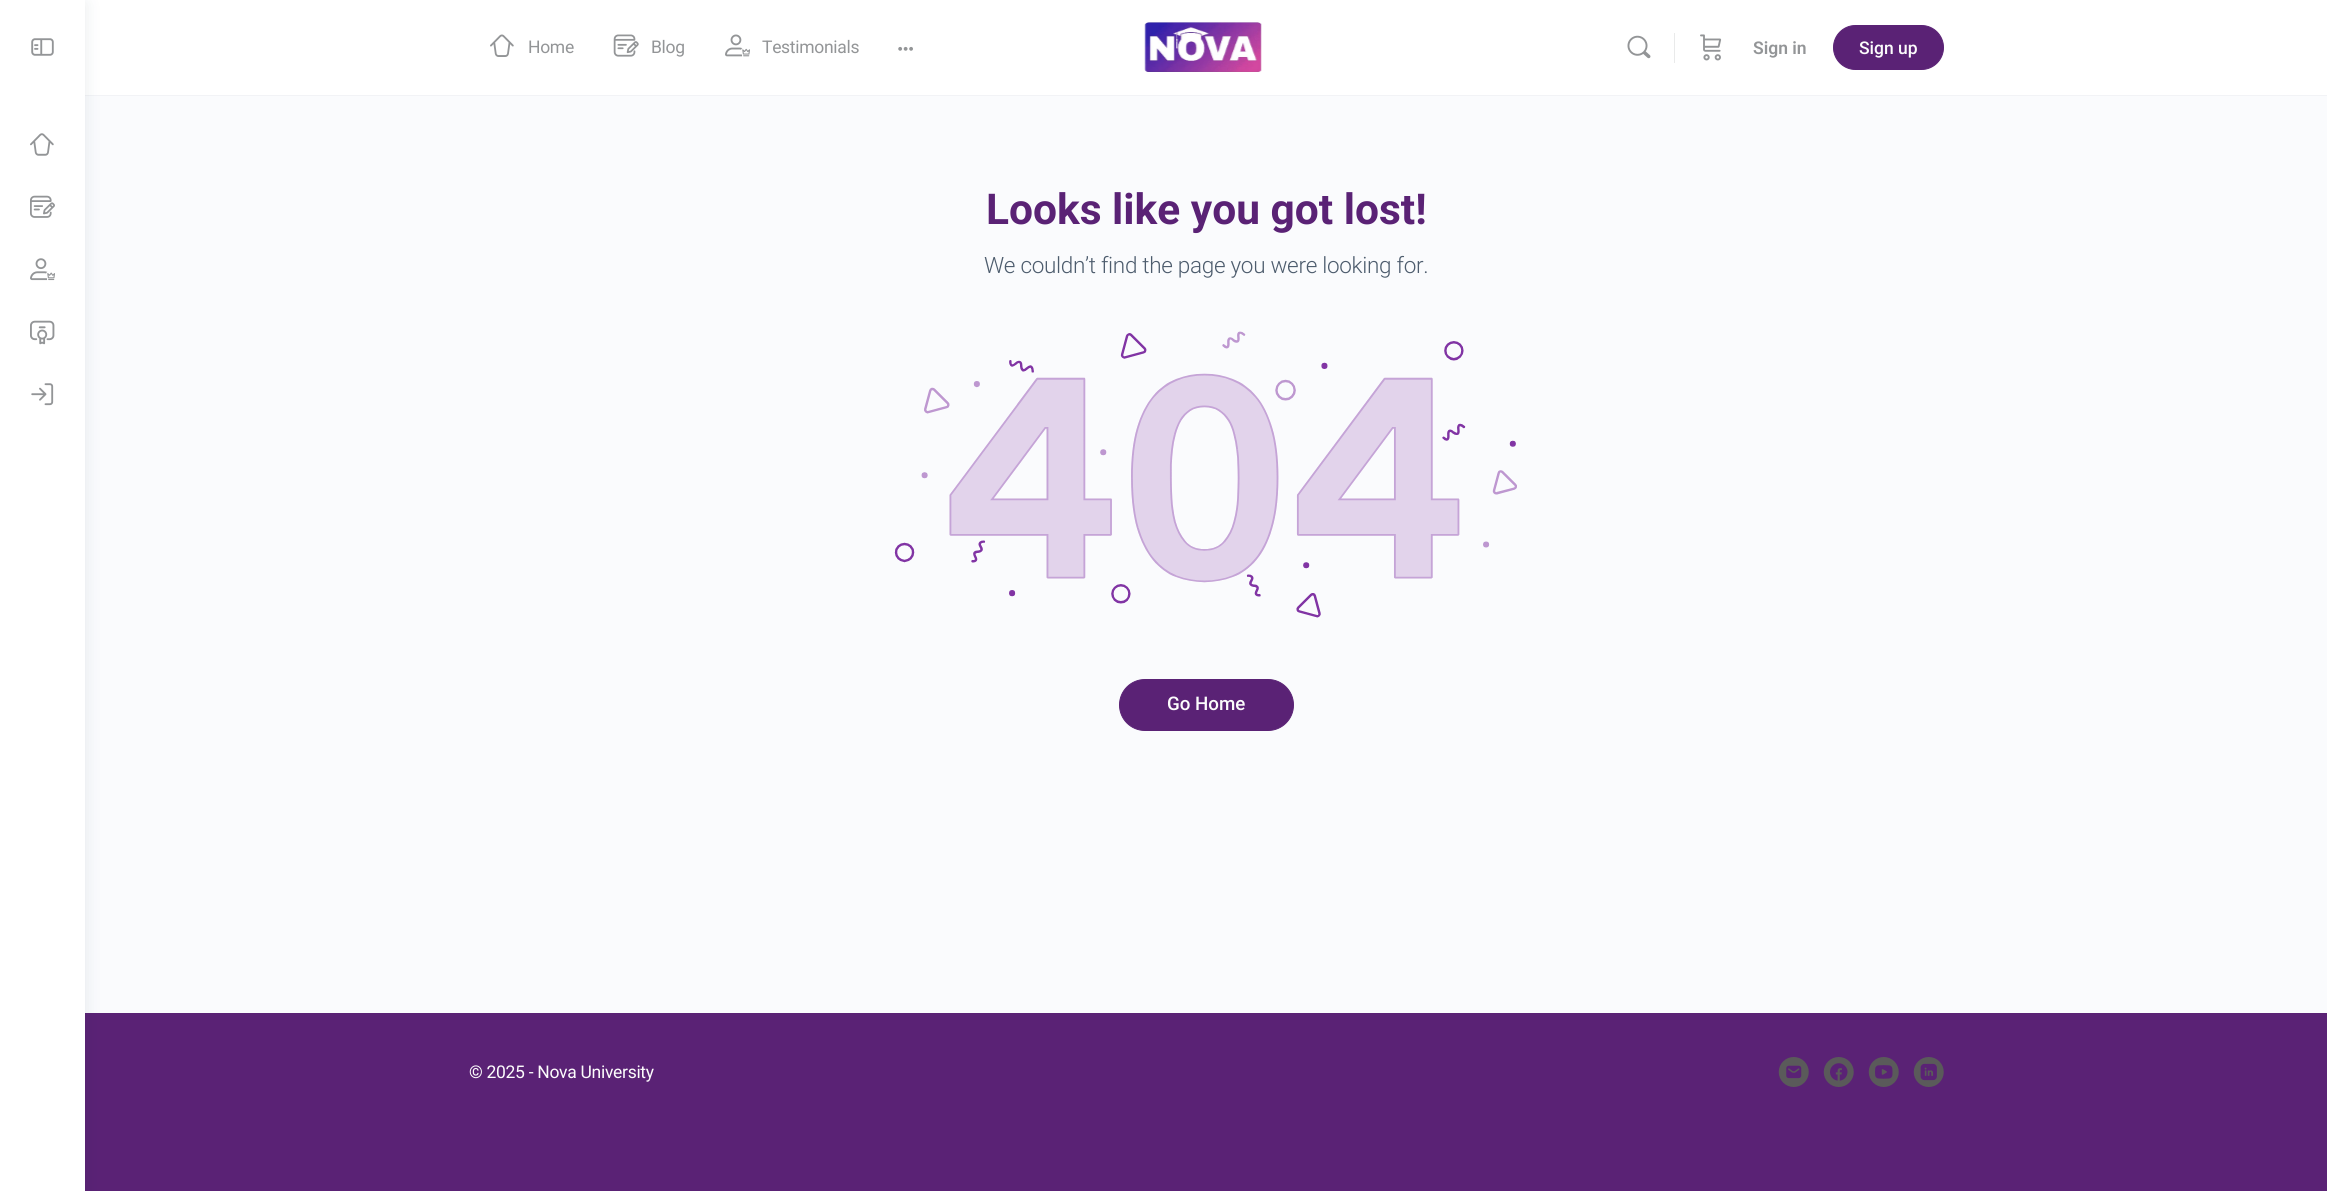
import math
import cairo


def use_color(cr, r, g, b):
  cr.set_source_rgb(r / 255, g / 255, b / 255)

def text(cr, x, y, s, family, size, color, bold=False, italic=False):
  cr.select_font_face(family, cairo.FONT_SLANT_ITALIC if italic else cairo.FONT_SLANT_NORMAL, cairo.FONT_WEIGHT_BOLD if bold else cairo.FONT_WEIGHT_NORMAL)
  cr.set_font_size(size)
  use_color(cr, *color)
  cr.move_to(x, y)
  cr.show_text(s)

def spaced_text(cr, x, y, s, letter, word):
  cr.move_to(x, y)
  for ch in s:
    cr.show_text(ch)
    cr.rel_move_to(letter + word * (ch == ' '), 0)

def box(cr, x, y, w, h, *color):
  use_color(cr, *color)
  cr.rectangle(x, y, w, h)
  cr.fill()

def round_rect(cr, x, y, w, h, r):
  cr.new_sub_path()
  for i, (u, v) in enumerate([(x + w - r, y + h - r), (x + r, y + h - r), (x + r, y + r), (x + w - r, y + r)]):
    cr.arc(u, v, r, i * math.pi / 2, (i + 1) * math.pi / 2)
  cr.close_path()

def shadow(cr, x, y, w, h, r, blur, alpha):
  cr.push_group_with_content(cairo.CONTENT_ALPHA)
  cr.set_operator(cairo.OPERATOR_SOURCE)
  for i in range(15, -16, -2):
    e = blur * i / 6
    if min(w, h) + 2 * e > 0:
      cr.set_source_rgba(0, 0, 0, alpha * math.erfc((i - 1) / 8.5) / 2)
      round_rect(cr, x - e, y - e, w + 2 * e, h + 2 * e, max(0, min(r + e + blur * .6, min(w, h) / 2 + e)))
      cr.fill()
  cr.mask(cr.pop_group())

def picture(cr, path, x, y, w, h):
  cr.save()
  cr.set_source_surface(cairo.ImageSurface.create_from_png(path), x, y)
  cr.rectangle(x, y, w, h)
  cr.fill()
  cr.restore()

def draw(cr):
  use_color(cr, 250, 251, 253)
  cr.paint()
  use_color(cr, 242, 243, 246)
  cr.new_path()
  cr.move_to(85, 95)
  cr.line_to(85, 96)
  cr.line_to(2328, 96)
  cr.line_to(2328, 1)
  cr.line_to(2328, 95)
  cr.close_path()
  cr.fill()
  box(cr, 85, 0, 2242, 95, 255, 255, 255)
  box(cr, 85, 1013, 2242, 178, 90, 34, 117)
  use_color(cr, 18, 43, 70)
  shadow(cr, 0, 4, 85, 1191, 0, 8, 0.1)
  box(cr, 0, 0, 85, 1191, 255, 255, 255)
  picture(cr, "img_01.png", 31, 38, 23, 18)
  picture(cr, "img_02.png", 30, 133, 24, 23)
  picture(cr, "img_03.png", 30, 195, 25, 23)
  picture(cr, "img_04.png", 30, 258, 25, 23)
  picture(cr, "img_05.png", 30, 320, 25, 25)
  picture(cr, "img_06.png", 31, 383, 23, 23)
  picture(cr, "img_07.png", 490, 34, 24, 23)
  picture(cr, "img_08.png", 613, 34, 26, 23)
  picture(cr, "img_09.png", 725, 34, 25, 23)
  picture(cr, "img_10.png", 898, 46, 15, 5)
  picture(cr, "img_11.png", 1144, 22, 118, 50)
  picture(cr, "img_12.png", 1627, 35, 24, 24)
  box(cr, 1674, 33, 1, 30, 233, 234, 234)
  picture(cr, "img_13.png", 1700, 34, 22, 27)
  use_color(cr, 90, 34, 117)
  round_rect(cr, 1833.5, 25.5, 110, 44, 22)
  cr.fill_preserve()
  cr.set_line_width(1)
  cr.stroke()
  picture(cr, "img_14.png", 894, 331, 623, 287)
  round_rect(cr, 1119.5, 679.5, 174, 51, 25.5)
  cr.fill_preserve()
  cr.stroke()
  picture(cr, "img_15.png", 1778, 1057, 31, 30)
  picture(cr, "img_16.png", 1823, 1057, 31, 30)
  picture(cr, "img_17.png", 1868, 1057, 31, 30)
  picture(cr, "img_18.png", 1913, 1057, 31, 30)
  cr.select_font_face("Roboto")
  cr.set_font_size(17.5)
  use_color(cr, 147, 149, 151)
  spaced_text(cr, 528, 53, "Home", -0.3, 0)
  spaced_text(cr, 651, 53, "Blog", -0.3, 0)
  spaced_text(cr, 762, 53, "Testimonials", -0.3, 0)
  text(cr, 1753, 54, "Sign in", "Roboto SemiBold", 17.5, (147, 149, 151))
  text(cr, 1859, 54, "Sign up", "Roboto Medium", 17.5, (252, 252, 252))
  text(cr, 986, 224, "Looks like you got lost!", "Roboto", 42.5, (90, 34, 117), bold=True)
  cr.select_font_face("Roboto Light")
  cr.set_font_size(22.5)
  use_color(cr, 77, 92, 109)
  spaced_text(cr, 984, 273, "We couldn’t find the page you were looking for.", -0.3, 0)
  text(cr, 1167, 710, "Go Home", "Roboto Medium", 18.75, (252, 252, 252))
  cr.select_font_face("Roboto")
  cr.set_font_size(17.5)
  spaced_text(cr, 469, 1078, "© 2025 - Nova University", -0.3, 0)


surface = cairo.ImageSurface(cairo.FORMAT_RGB24, 2327, 1191)
cr = cairo.Context(surface)
options = cairo.FontOptions()
options.set_hint_metrics(cairo.HINT_METRICS_OFF)
options.set_hint_style(cairo.HINT_STYLE_NONE)
cr.set_font_options(options)
cr.set_miter_limit(4)
draw(cr)
surface.write_to_png("out.png")
